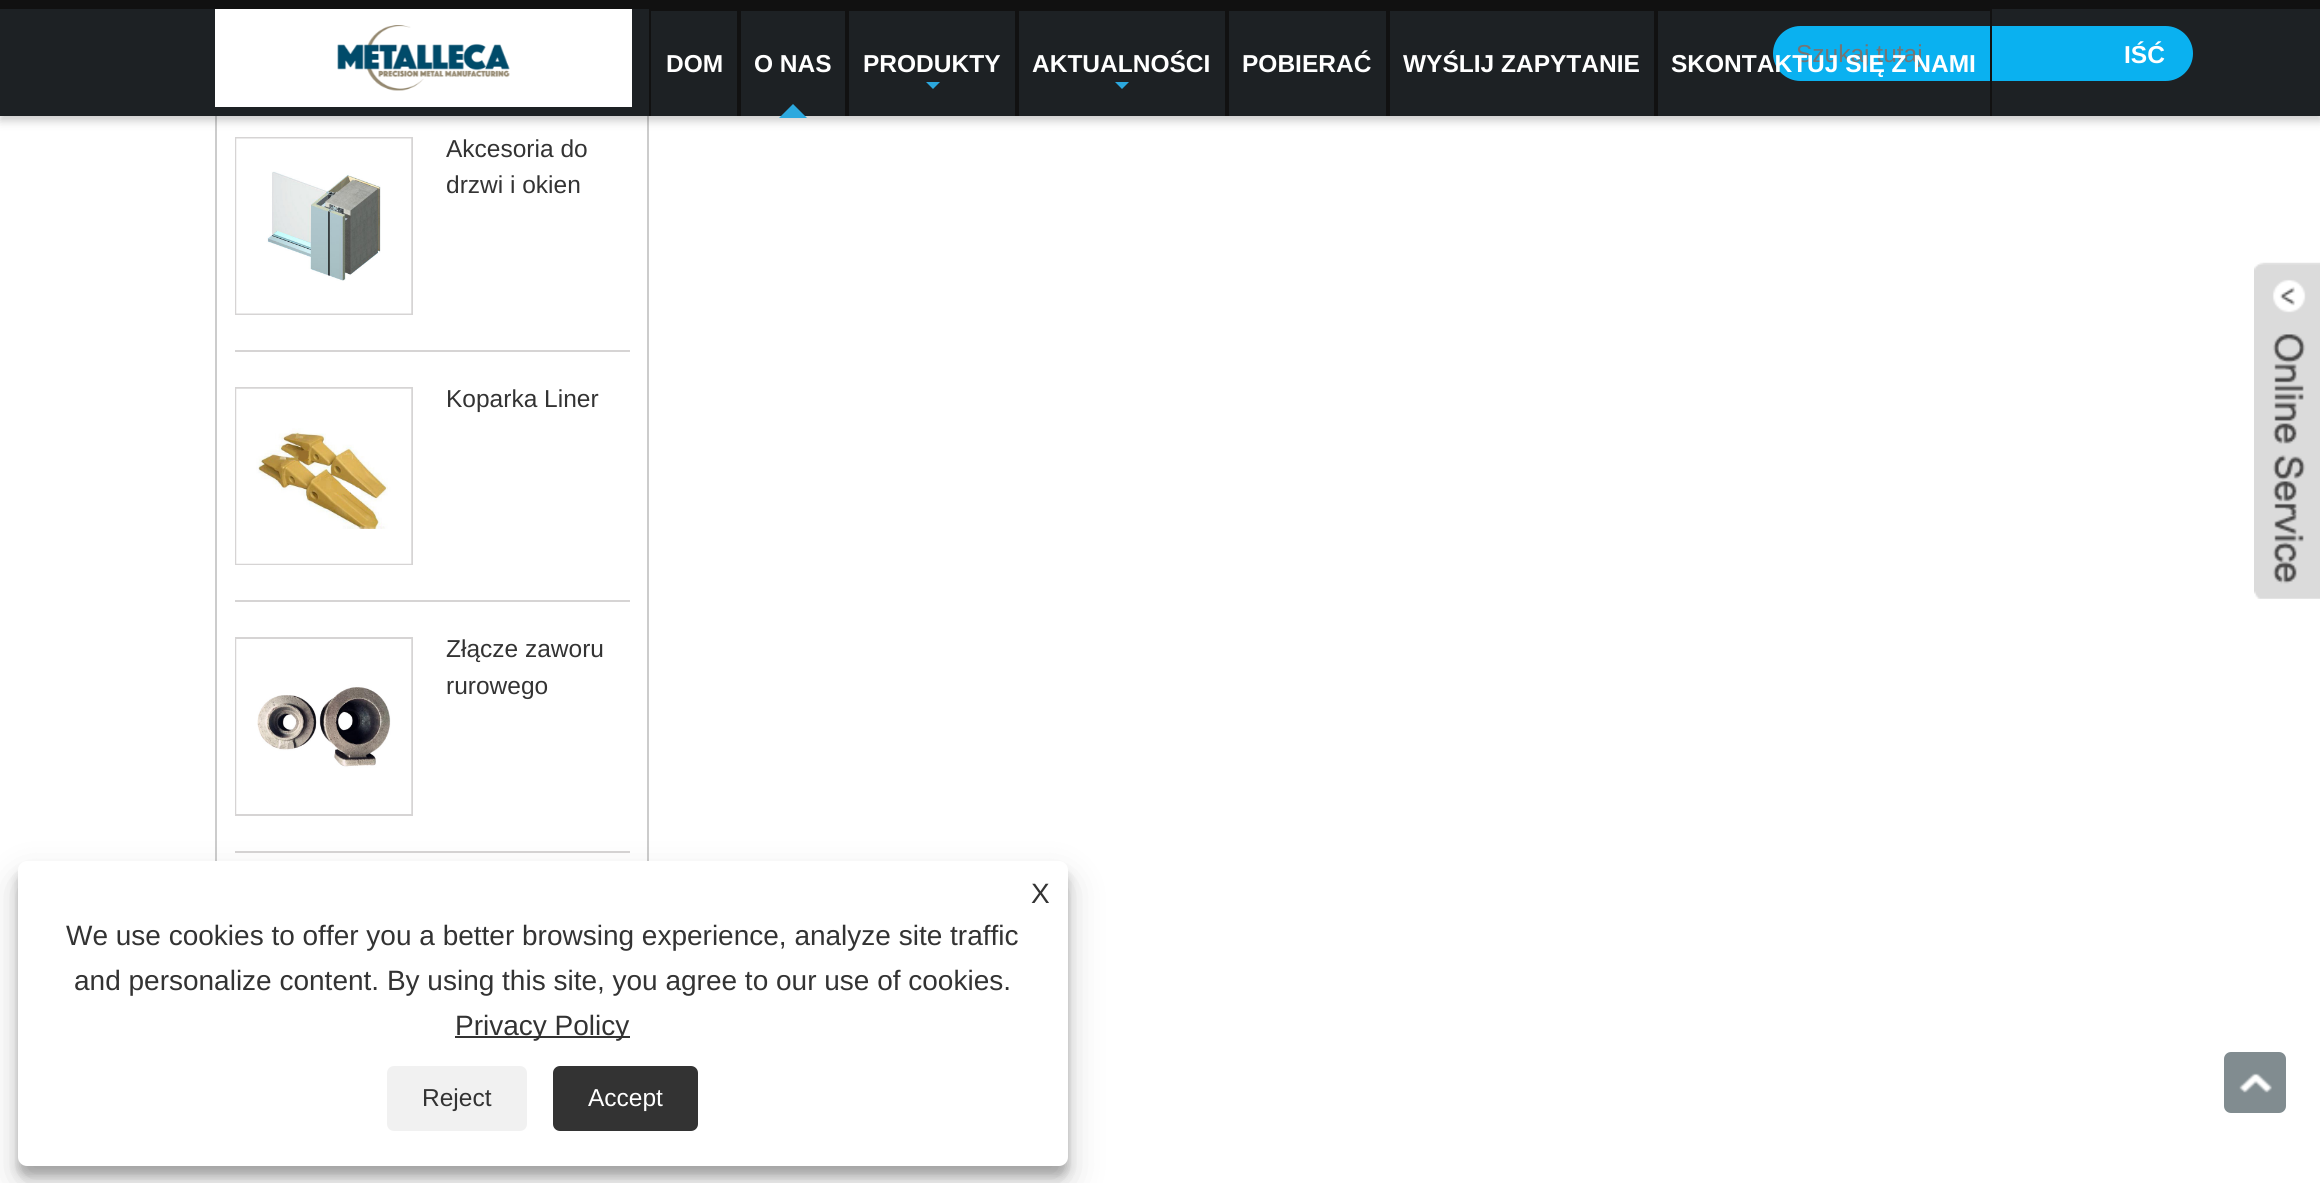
import math
import cairo


def use_color(cr, r, g, b):
  cr.set_source_rgb(r / 255, g / 255, b / 255)

def text(cr, x, y, s, family, size, color, bold=False, italic=False):
  cr.select_font_face(family, cairo.FONT_SLANT_ITALIC if italic else cairo.FONT_SLANT_NORMAL, cairo.FONT_WEIGHT_BOLD if bold else cairo.FONT_WEIGHT_NORMAL)
  cr.set_font_size(size)
  use_color(cr, *color)
  cr.move_to(x, y)
  cr.show_text(s)

def box(cr, x, y, w, h, *color):
  use_color(cr, *color)
  cr.rectangle(x, y, w, h)
  cr.fill()

def round_rect(cr, x, y, w, h, r):
  cr.new_sub_path()
  for i, (u, v) in enumerate([(x + w - r, y + h - r), (x + r, y + h - r), (x + r, y + r), (x + w - r, y + r)]):
    cr.arc(u, v, r, i * math.pi / 2, (i + 1) * math.pi / 2)
  cr.close_path()

def shadow(cr, x, y, w, h, r, blur, alpha):
  cr.push_group_with_content(cairo.CONTENT_ALPHA)
  cr.set_operator(cairo.OPERATOR_SOURCE)
  for i in range(15, -16, -2):
    e = blur * i / 6
    if min(w, h) + 2 * e > 0:
      cr.set_source_rgba(0, 0, 0, alpha * math.erfc((i - 1) / 8.5) / 2)
      round_rect(cr, x - e, y - e, w + 2 * e, h + 2 * e, max(0, min(r + e + blur * .6, min(w, h) / 2 + e)))
      cr.fill()
  cr.mask(cr.pop_group())

def picture(cr, path, x, y, w, h):
  cr.save()
  cr.set_source_surface(cairo.ImageSurface.create_from_png(path), x, y)
  cr.rectangle(x, y, w, h)
  cr.fill()
  cr.restore()

def draw(cr):
  use_color(cr, 255, 255, 255)
  cr.paint()
  cr.rectangle(216, -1, 432, 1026)
  use_color(cr, 204, 204, 204)
  cr.stroke()
  use_color(cr, 0, 0, 0)
  shadow(cr, 0, 5, 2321, 116, 0, 4.5, 0.2)
  box(cr, 0, 9, 2320, 107, 29, 33, 36)
  box(cr, 0, 0, 2320, 9, 17, 17, 17)
  box(cr, 215, 9, 417, 98, 255, 255, 255)
  picture(cr, "img_01.png", 337, 25, 173, 66)
  box(cr, 649, 9, 1343, 2, 17, 17, 17)
  box(cr, 737, 9, 4, 107, 17, 17, 17)
  box(cr, 649, 9, 2, 107, 17, 17, 17)
  box(cr, 845, 9, 4, 107, 17, 17, 17)
  use_color(cr, 43, 168, 222)
  cr.new_path()
  cr.move_to(807, 118)
  cr.line_to(779, 118)
  cr.line_to(793, 104)
  cr.close_path()
  cr.fill()
  box(cr, 1015, 9, 4, 107, 17, 17, 17)
  use_color(cr, 43, 168, 222)
  cr.new_path()
  cr.move_to(926, 82)
  cr.line_to(940, 82)
  cr.line_to(933, 89)
  cr.close_path()
  cr.fill()
  box(cr, 1225, 9, 4, 107, 17, 17, 17)
  use_color(cr, 43, 168, 222)
  cr.new_path()
  cr.move_to(1115, 82)
  cr.line_to(1129, 82)
  cr.line_to(1122, 89)
  cr.close_path()
  cr.fill()
  box(cr, 1386, 9, 4, 107, 17, 17, 17)
  box(cr, 1654, 9, 4, 107, 17, 17, 17)
  use_color(cr, 10, 177, 240)
  round_rect(cr, 1773, 26, 420, 55, 27.5)
  cr.fill()
  box(cr, 1990, 9, 2, 107, 17, 17, 17)
  box(cr, 235, 350, 395, 2, 214, 212, 212)
  cr.rectangle(236, 138, 176, 176)
  cr.stroke()
  picture(cr, "img_02.png", 236, 138, 176, 176)
  box(cr, 235, 600, 395, 2, 214, 212, 212)
  cr.rectangle(236, 388, 176, 176)
  cr.stroke()
  picture(cr, "img_03.png", 236, 388, 176, 176)
  box(cr, 235, 851, 395, 2, 214, 212, 212)
  cr.rectangle(236, 638, 176, 177)
  cr.stroke()
  picture(cr, "img_04.png", 236, 639, 176, 175)
  picture(cr, "img_05.png", 2254, 262, 66, 337)
  use_color(cr, 0, 0, 0)
  shadow(cr, 18, 872, 1050, 304, 9, 5, 0.23)
  shadow(cr, 18, 879, 1050, 304, 9, 17.5, 0.19)
  use_color(cr, 255, 255, 255)
  round_rect(cr, 18, 861, 1050, 305, 9)
  cr.fill()
  box(cr, 455, 1036, 175, 2, 51, 51, 51)
  use_color(cr, 241, 241, 241)
  round_rect(cr, 387, 1066, 140, 65, 7)
  cr.fill()
  use_color(cr, 51, 51, 51)
  round_rect(cr, 553, 1066, 145, 65, 7)
  cr.fill()
  use_color(cr, 129, 140, 144)
  round_rect(cr, 2224, 1052, 62, 61, 7)
  cr.fill()
  picture(cr, "img_06.png", 2239, 1073, 33, 20)
  text(cr, 666, 72, "DOM", "Liberation Sans", 24.5, (255, 255, 255), bold=True)
  text(cr, 754, 72, "O NAS", "Liberation Sans", 24.5, (255, 255, 255), bold=True)
  text(cr, 863, 72, "PRODUKTY", "Liberation Sans", 24.5, (255, 255, 255), bold=True)
  text(cr, 1032, 72, "AKTUALNOŚCI", "Liberation Sans", 24.5, (255, 255, 255), bold=True)
  text(cr, 1242, 72, "POBIERAĆ", "Liberation Sans", 24.5, (255, 255, 255), bold=True)
  text(cr, 1403, 72, "WYŚLIJ ZAPYTANIE", "Liberation Sans", 24.5, (255, 255, 255), bold=True)
  text(cr, 1796, 62, "Szukaj tutaj", "Liberation Sans", 24.5, (117, 117, 117))
  text(cr, 1671, 72, "SKONTAKTUJ SIĘ Z NAMI", "Liberation Sans", 24.5, (255, 255, 255), bold=True)
  text(cr, 2124, 63, "IŚĆ", "Liberation Sans", 24.5, (255, 255, 255), bold=True)
  text(cr, 446, 157, "Akcesoria do", "Liberation Sans", 24.5, (51, 51, 51))
  text(cr, 446, 193, "drzwi i okien", "Liberation Sans", 24.5, (51, 51, 51))
  text(cr, 446, 407, "Koparka Liner", "Liberation Sans", 24.5, (51, 51, 51))
  text(cr, 446, 657, "Złącze zaworu", "Liberation Sans", 24.5, (51, 51, 51))
  text(cr, 446, 694, "rurowego", "Liberation Sans", 24.5, (51, 51, 51))
  text(cr, 1031, 903, "X", "Liberation Sans", 28, (51, 51, 51))
  text(cr, 66, 945, "We use cookies to offer you a better browsing experience, analyze site traffic", "Liberation Sans", 28, (51, 51, 51))
  text(cr, 74, 990, "and personalize content. By using this site, you agree to our use of cookies.", "Liberation Sans", 28, (51, 51, 51))
  text(cr, 455, 1035, "Privacy Policy", "Liberation Sans", 28, (51, 51, 51))
  text(cr, 422, 1106, "Reject", "Liberation Sans", 24.5, (51, 51, 51))
  text(cr, 588, 1106, "Accept", "Liberation Sans", 24.5, (255, 255, 255))


surface = cairo.ImageSurface(cairo.FORMAT_RGB24, 2320, 1183)
cr = cairo.Context(surface)
options = cairo.FontOptions()
options.set_hint_metrics(cairo.HINT_METRICS_OFF)
options.set_hint_style(cairo.HINT_STYLE_NONE)
cr.set_font_options(options)
cr.set_miter_limit(4)
draw(cr)
surface.write_to_png("out.png")
